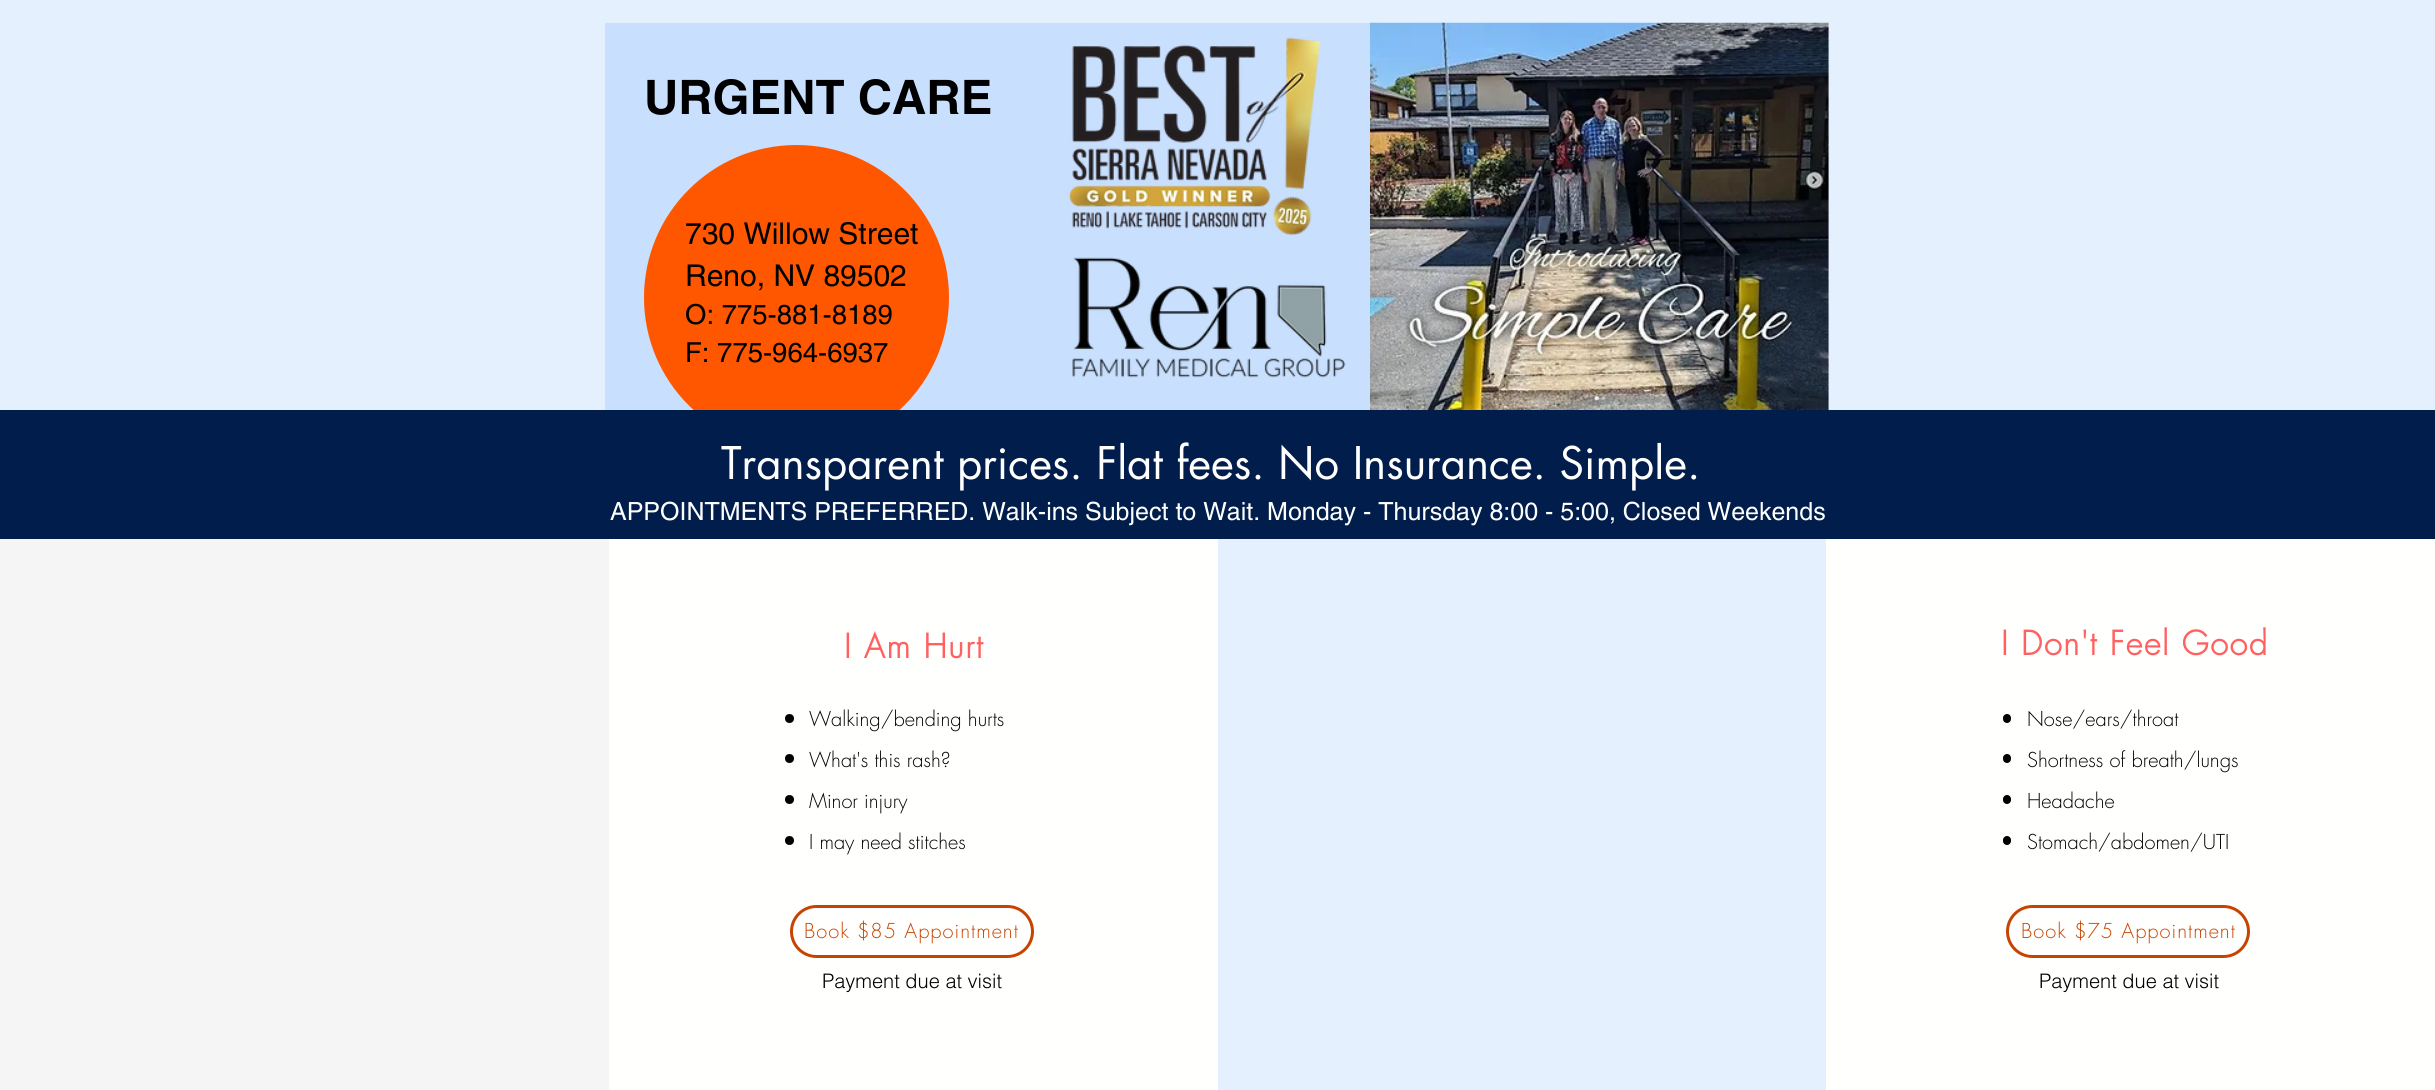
import math
import cairo


def use_color(cr, r, g, b):
  cr.set_source_rgb(r / 255, g / 255, b / 255)

def text(cr, x, y, s, family, size, color, bold=False, italic=False):
  cr.select_font_face(family, cairo.FONT_SLANT_ITALIC if italic else cairo.FONT_SLANT_NORMAL, cairo.FONT_WEIGHT_BOLD if bold else cairo.FONT_WEIGHT_NORMAL)
  cr.set_font_size(size)
  use_color(cr, *color)
  cr.move_to(x, y)
  cr.show_text(s)

def spaced_text(cr, x, y, s, letter, word):
  cr.move_to(x, y)
  for ch in s:
    cr.show_text(ch)
    cr.rel_move_to(letter + word * (ch == ' '), 0)

def box(cr, x, y, w, h, *color):
  use_color(cr, *color)
  cr.rectangle(x, y, w, h)
  cr.fill()

def round_rect(cr, x, y, w, h, r):
  cr.new_sub_path()
  for i, (u, v) in enumerate([(x + w - r, y + h - r), (x + r, y + h - r), (x + r, y + r), (x + w - r, y + r)]):
    cr.arc(u, v, r, i * math.pi / 2, (i + 1) * math.pi / 2)
  cr.close_path()

def picture(cr, path, x, y, w, h):
  cr.save()
  cr.set_source_surface(cairo.ImageSurface.create_from_png(path), x, y)
  cr.rectangle(x, y, w, h)
  cr.fill()
  cr.restore()

def draw(cr):
  use_color(cr, 229, 240, 254)
  cr.paint()
  box(cr, 605, 23, 765, 387, 200, 224, 254)
  picture(cr, "img_01.png", 1068, 37, 253, 199)
  use_color(cr, 255, 87, 0)
  cr.arc(796.5, 297.5, 152.5, 0, 2 * math.pi)
  cr.fill()
  picture(cr, "img_02.png", 1072, 257, 274, 121)
  picture(cr, "img_03.png", 1370, 22, 459, 388)
  box(cr, 0, 410, 2435, 129, 0, 29, 75)
  box(cr, 0, 539, 609, 551, 245, 245, 245)
  box(cr, 609, 539, 609, 551, 255, 255, 254)
  use_color(cr, 0, 0, 0)
  cr.arc(789.5, 718.5, 4.5, 0, 2 * math.pi)
  cr.fill()
  cr.arc(789.5, 758.5, 4.5, 0, 2 * math.pi)
  cr.fill()
  cr.arc(789.5, 799.5, 4.5, 0, 2 * math.pi)
  cr.fill()
  cr.arc(789.5, 840.5, 4.5, 0, 2 * math.pi)
  cr.fill()
  round_rect(cr, 791.5, 906.5, 241, 50, 25)
  use_color(cr, 199, 67, 0)
  cr.set_line_width(3)
  cr.stroke()
  box(cr, 1826, 539, 609, 551, 255, 255, 254)
  use_color(cr, 0, 0, 0)
  round_rect(cr, 2003, 714, 8, 9, 4)
  cr.fill()
  round_rect(cr, 2003, 754, 8, 9, 4)
  cr.fill()
  round_rect(cr, 2003, 795, 8, 9, 4)
  cr.fill()
  round_rect(cr, 2003, 836, 8, 9, 4)
  cr.fill()
  round_rect(cr, 2007.5, 906.5, 241, 50, 25)
  use_color(cr, 199, 67, 0)
  cr.stroke()
  text(cr, 644, 114, "URGENT CARE", "helvetica", 47.5, (0, 0, 0), bold=True)
  text(cr, 685, 244, "730 Willow Street", "helvetica", 30, (0, 0, 0))
  text(cr, 685, 286, "Reno, NV 89502", "helvetica", 30, (0, 0, 0))
  text(cr, 685, 324, "O: 775-881-8189", "helvetica", 27.5, (0, 0, 0))
  text(cr, 685, 362, "F: 775-964-6937", "helvetica", 27.5, (0, 0, 0))
  text(cr, 721, 479, "Transparent prices. Flat fees. No Insurance. Simple.", "futura", 43.75, (255, 255, 255))
  text(cr, 610, 520, "APPOINTMENTS PREFERRED. Walk-ins Subject to Wait. Monday - Thursday 8:00 - 5:00, Closed Weekends", "helvetica", 25, (255, 255, 255))
  cr.select_font_face("futura", cairo.FONT_SLANT_NORMAL, cairo.FONT_WEIGHT_BOLD)
  cr.set_font_size(32.5)
  use_color(cr, 255, 97, 97)
  spaced_text(cr, 844, 658, "I Am Hurt", 1.6, 0)
  text(cr, 809, 726, "Walking/bending hurts", "futura Light", 20, (0, 0, 0))
  text(cr, 809, 767, "What's this rash?", "futura Light", 20, (0, 0, 0))
  text(cr, 809, 808, "Minor injury", "futura Light", 20, (0, 0, 0))
  text(cr, 809, 849, "I may need stitches", "futura Light", 20, (0, 0, 0))
  use_color(cr, 199, 67, 0)
  spaced_text(cr, 804, 938, "Book $85 Appointment", 1, 0)
  text(cr, 822, 988, "Payment due at visit", "helvetica Light", 20, (0, 0, 0))
  cr.select_font_face("futura", cairo.FONT_SLANT_NORMAL, cairo.FONT_WEIGHT_BOLD)
  cr.set_font_size(32.5)
  use_color(cr, 255, 97, 97)
  spaced_text(cr, 2001, 655, "I Don't Feel Good", 1.6, 0)
  text(cr, 2027, 726, "Nose/ears/throat", "futura Light", 20, (0, 0, 0))
  text(cr, 2027, 767, "Shortness of breath/lungs", "futura Light", 20, (0, 0, 0))
  text(cr, 2027, 808, "Headache", "futura Light", 20, (0, 0, 0))
  text(cr, 2027, 849, "Stomach/abdomen/UTI", "futura Light", 20, (0, 0, 0))
  use_color(cr, 199, 67, 0)
  spaced_text(cr, 2021, 938, "Book $75 Appointment", 1, 0)
  text(cr, 2039, 988, "Payment due at visit", "helvetica Light", 20, (0, 0, 0))


surface = cairo.ImageSurface(cairo.FORMAT_RGB24, 2435, 1090)
cr = cairo.Context(surface)
options = cairo.FontOptions()
options.set_hint_metrics(cairo.HINT_METRICS_OFF)
options.set_hint_style(cairo.HINT_STYLE_NONE)
cr.set_font_options(options)
cr.set_miter_limit(4)
draw(cr)
surface.write_to_png("out.png")
